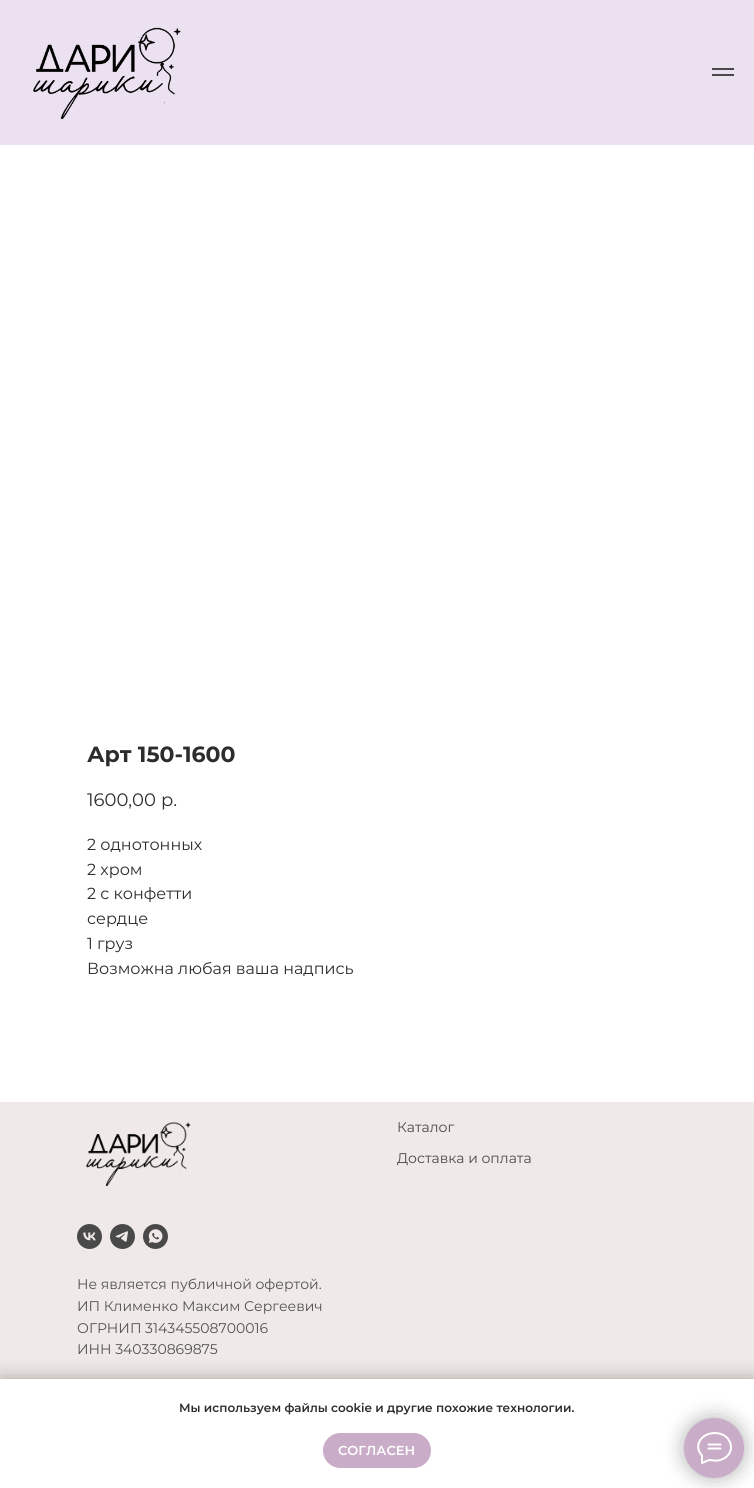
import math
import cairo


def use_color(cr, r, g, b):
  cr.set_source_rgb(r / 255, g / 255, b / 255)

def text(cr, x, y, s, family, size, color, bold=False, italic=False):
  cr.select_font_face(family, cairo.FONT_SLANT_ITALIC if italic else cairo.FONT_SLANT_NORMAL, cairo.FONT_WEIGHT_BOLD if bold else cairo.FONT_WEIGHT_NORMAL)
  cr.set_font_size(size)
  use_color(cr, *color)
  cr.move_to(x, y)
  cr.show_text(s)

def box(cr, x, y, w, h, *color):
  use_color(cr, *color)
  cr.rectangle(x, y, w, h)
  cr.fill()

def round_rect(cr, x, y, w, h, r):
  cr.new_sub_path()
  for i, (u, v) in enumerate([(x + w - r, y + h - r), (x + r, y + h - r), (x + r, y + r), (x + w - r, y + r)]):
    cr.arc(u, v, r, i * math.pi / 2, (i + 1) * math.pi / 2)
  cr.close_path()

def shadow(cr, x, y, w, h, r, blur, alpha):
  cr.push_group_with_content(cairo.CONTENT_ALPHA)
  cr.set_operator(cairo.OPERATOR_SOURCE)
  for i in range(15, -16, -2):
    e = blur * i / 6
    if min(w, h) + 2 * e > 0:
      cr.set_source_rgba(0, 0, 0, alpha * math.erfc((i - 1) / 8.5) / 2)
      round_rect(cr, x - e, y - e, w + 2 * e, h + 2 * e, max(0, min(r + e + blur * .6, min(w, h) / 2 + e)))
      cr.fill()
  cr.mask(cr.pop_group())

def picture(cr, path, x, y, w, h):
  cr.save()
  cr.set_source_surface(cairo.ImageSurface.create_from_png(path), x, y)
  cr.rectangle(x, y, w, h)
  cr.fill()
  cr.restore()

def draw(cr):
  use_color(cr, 255, 255, 255)
  cr.paint()
  box(cr, 0, 1102, 754, 277, 239, 234, 231)
  picture(cr, "img_01.png", 86, 1122, 105, 65)
  picture(cr, "img_02.png", 77, 1224, 25, 25)
  picture(cr, "img_03.png", 110, 1224, 25, 25)
  picture(cr, "img_04.png", 143, 1224, 25, 25)
  box(cr, 0, 0, 754, 145, 236, 225, 241)
  picture(cr, "img_05.png", 33, 27, 148, 92)
  box(cr, 712, 68, 22, 2, 74, 73, 73)
  box(cr, 712, 74, 22, 2, 74, 73, 73)
  use_color(cr, 0, 0, 0)
  shadow(cr, 0, 1379, 754, 109, 0, 10, 0.3)
  box(cr, 0, 1379, 754, 109, 255, 255, 255)
  use_color(cr, 201, 172, 199)
  round_rect(cr, 323, 1433, 108, 35, 17.5)
  cr.fill()
  use_color(cr, 0, 0, 0)
  shadow(cr, 684, 1418, 60, 60, 30, 10, 0.3)
  use_color(cr, 201, 172, 199)
  cr.arc(714, 1448, 30, 0, 2 * math.pi)
  cr.fill()
  cr.new_path()
  cr.move_to(708.5, 1444.5)
  cr.line_to(720.5, 1444.5)
  cr.move_to(708.5, 1448.5)
  cr.line_to(720.5, 1448.5)
  cr.move_to(702, 1455.5)
  cr.curve_to(696.5, 1450, 697, 1442, 703, 1437)
  cr.curve_to(706, 1434.5, 710.5, 1433, 714.5, 1433)
  cr.curve_to(734, 1433, 737.5, 1457, 718, 1460.5)
  cr.curve_to(714, 1461, 712.5, 1460, 709, 1460)
  cr.line_to(702, 1463)
  cr.line_to(702, 1456)
  cr.close_path()
  use_color(cr, 255, 255, 255)
  cr.set_line_cap(cairo.LINE_CAP_ROUND)
  cr.set_line_join(cairo.LINE_JOIN_ROUND)
  cr.stroke()
  text(cr, 87, 762, "Арт 150-1600", "Montserrat", 22, (46, 45, 45), bold=True)
  text(cr, 87, 806, "1600,00", "Montserrat", 18, (46, 45, 45))
  text(cr, 161, 806, "р.", "Montserrat", 18, (46, 45, 45))
  text(cr, 87, 850, "2 однотонных", "Montserrat", 16, (46, 45, 45))
  text(cr, 87, 875, "2 хром", "Montserrat", 16, (46, 45, 45))
  text(cr, 87, 899, "2 с конфетти", "Montserrat", 16, (46, 45, 45))
  text(cr, 87, 924, "сердце", "Montserrat", 16, (46, 45, 45))
  text(cr, 87, 949, "1 груз", "Montserrat", 16, (46, 45, 45))
  text(cr, 87, 974, "Возможна любая ваша надпись", "Montserrat", 16, (46, 45, 45))
  text(cr, 397, 1132, "Каталог", "Montserrat", 14, (74, 73, 73))
  text(cr, 397, 1163, "Доставка и оплата", "Montserrat", 14, (74, 73, 73))
  text(cr, 77, 1289, "Не является публичной офертой.", "Montserrat", 14, (82, 82, 82))
  text(cr, 77, 1311, "ИП Клименко Максим Сергеевич", "Montserrat", 14, (82, 82, 82))
  text(cr, 77, 1333, "ОГРНИП 314345508700016", "Montserrat", 14, (82, 82, 82))
  text(cr, 77, 1354, "ИНН 340330869875", "Montserrat", 14, (82, 82, 82))
  text(cr, 179, 1412, "Мы используем файлы cookie и другие похожие технологии.", "Montserrat SemiBold", 12, (46, 45, 45))
  text(cr, 338, 1455, "СОГЛАСЕН", "Montserrat SemiBold", 13, (255, 255, 255))


surface = cairo.ImageSurface(cairo.FORMAT_RGB24, 754, 1488)
cr = cairo.Context(surface)
options = cairo.FontOptions()
options.set_hint_metrics(cairo.HINT_METRICS_OFF)
options.set_hint_style(cairo.HINT_STYLE_NONE)
cr.set_font_options(options)
cr.set_miter_limit(4)
draw(cr)
surface.write_to_png("out.png")
